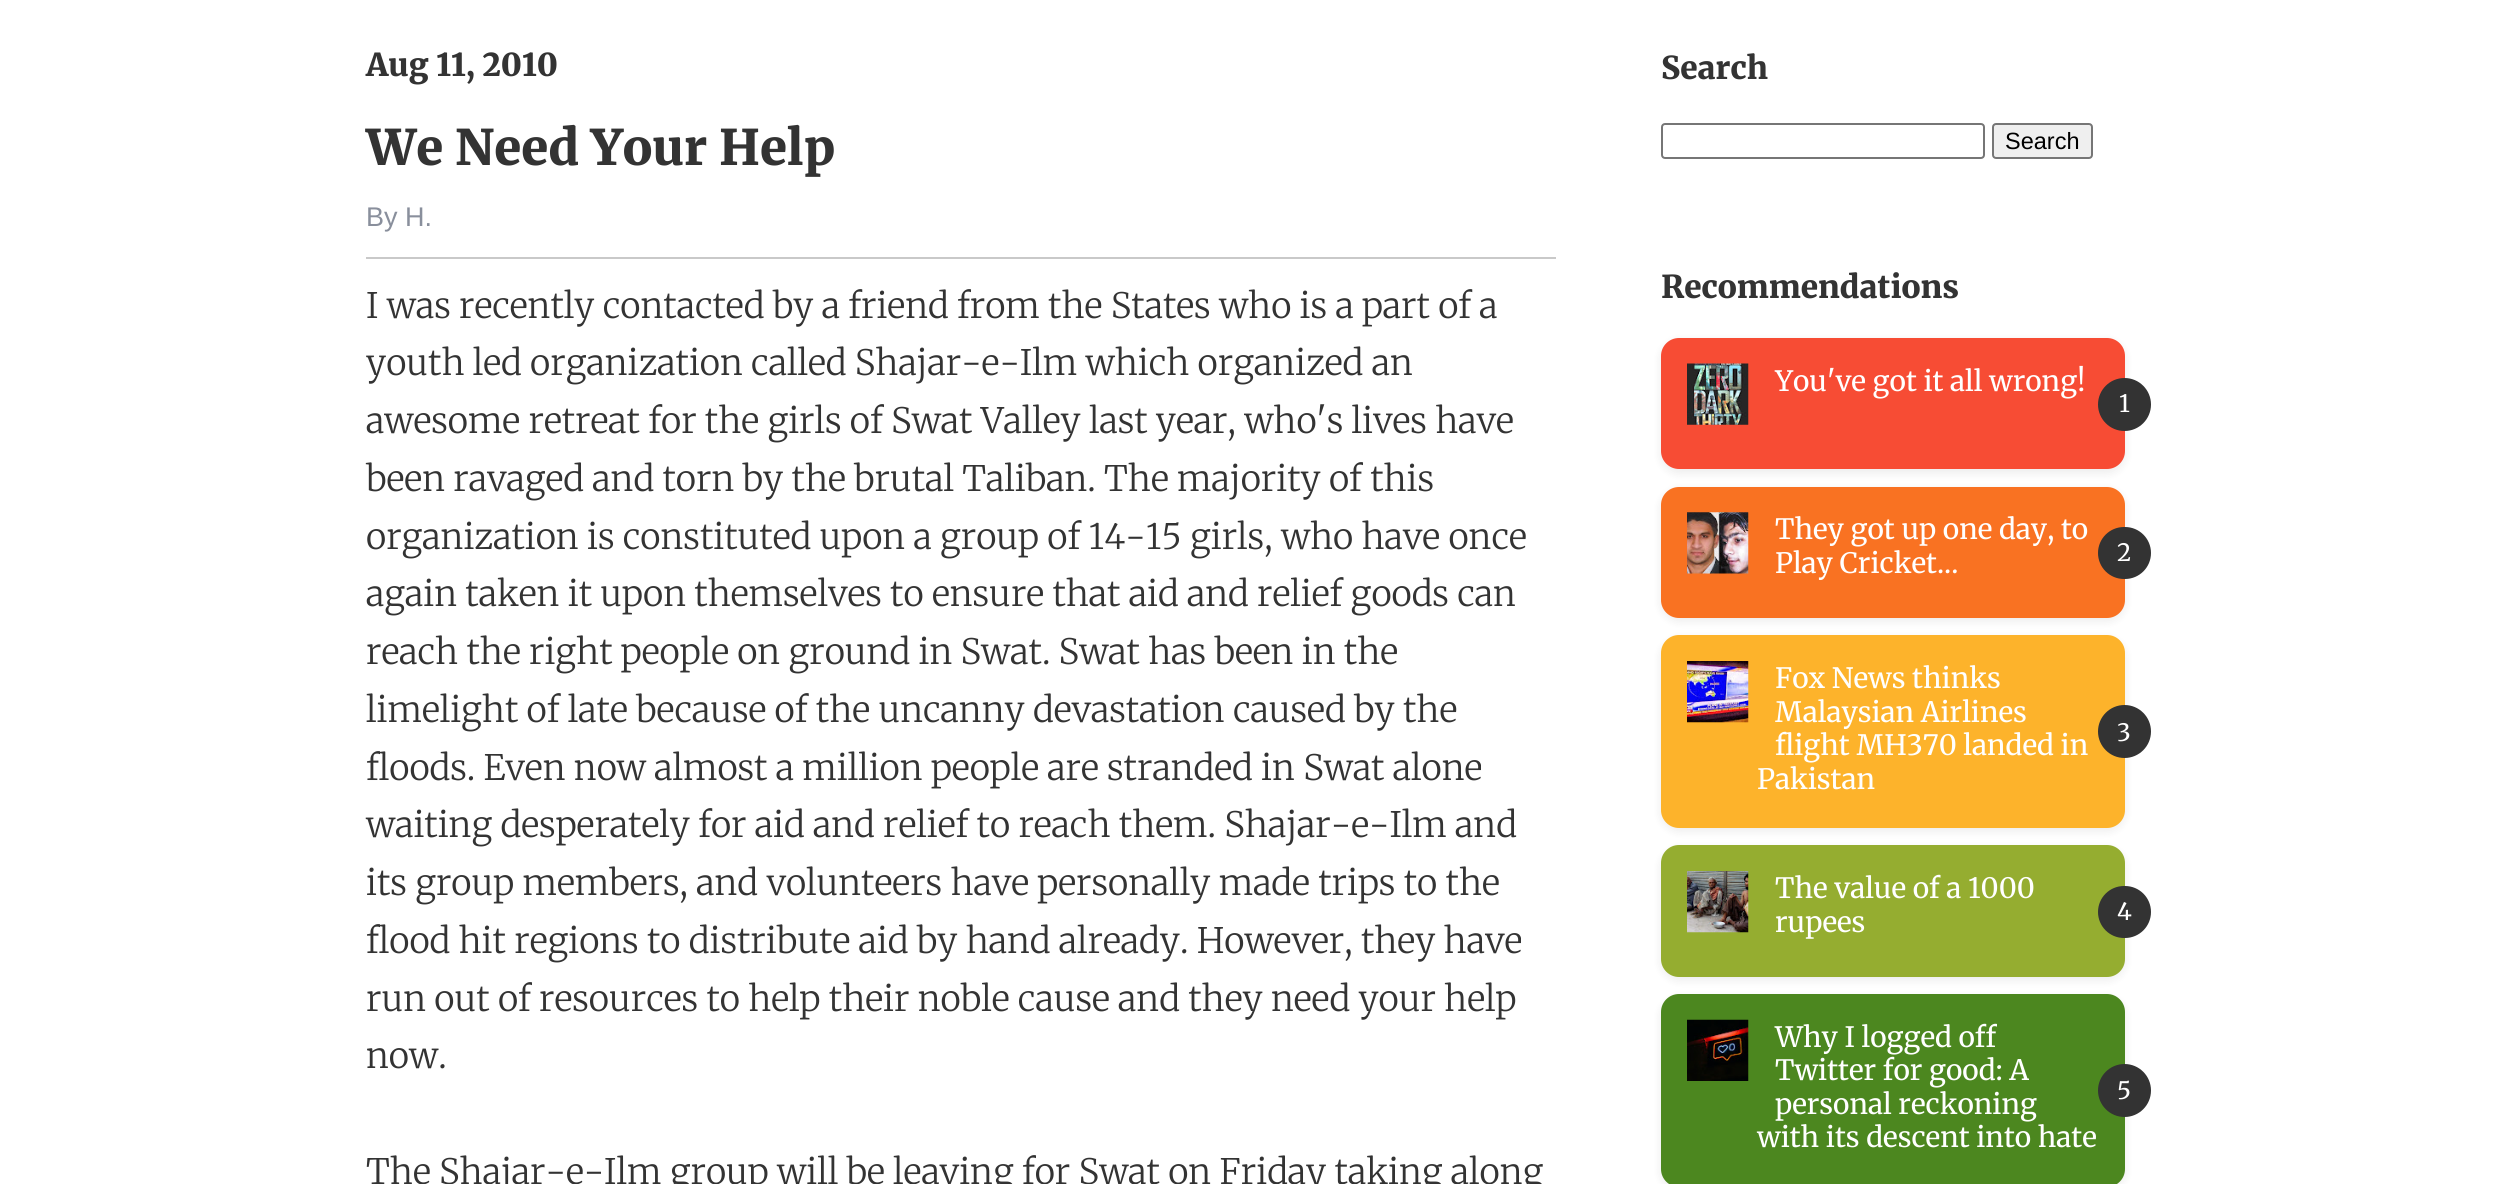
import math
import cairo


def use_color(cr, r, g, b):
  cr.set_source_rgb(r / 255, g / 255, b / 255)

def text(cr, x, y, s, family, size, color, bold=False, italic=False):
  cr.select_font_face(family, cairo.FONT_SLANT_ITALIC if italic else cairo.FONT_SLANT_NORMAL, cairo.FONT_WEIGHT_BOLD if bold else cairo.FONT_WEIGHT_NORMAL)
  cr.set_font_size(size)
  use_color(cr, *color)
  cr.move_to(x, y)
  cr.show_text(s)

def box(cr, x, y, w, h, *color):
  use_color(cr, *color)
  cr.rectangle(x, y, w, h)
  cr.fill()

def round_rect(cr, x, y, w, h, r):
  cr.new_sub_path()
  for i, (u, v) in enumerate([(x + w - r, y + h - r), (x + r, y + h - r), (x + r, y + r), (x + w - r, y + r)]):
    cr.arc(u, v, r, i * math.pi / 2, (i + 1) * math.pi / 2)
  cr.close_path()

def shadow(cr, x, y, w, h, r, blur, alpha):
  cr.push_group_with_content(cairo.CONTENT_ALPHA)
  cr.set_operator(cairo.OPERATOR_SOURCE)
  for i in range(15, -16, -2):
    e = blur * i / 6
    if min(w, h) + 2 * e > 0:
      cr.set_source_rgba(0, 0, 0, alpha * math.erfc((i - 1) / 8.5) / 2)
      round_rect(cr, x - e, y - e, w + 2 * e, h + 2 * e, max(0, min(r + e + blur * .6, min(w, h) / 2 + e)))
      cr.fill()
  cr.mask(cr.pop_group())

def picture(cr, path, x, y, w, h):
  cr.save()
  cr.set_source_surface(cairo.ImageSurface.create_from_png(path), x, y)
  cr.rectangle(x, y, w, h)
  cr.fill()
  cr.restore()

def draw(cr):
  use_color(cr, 255, 255, 255)
  cr.paint()
  box(cr, 366, 257, 1190, 2, 201, 201, 201)
  round_rect(cr, 1662, 124, 322, 34, 3)
  use_color(cr, 118, 118, 118)
  cr.stroke()
  use_color(cr, 239, 239, 239)
  round_rect(cr, 1993, 124, 99, 34, 3)
  cr.fill_preserve()
  use_color(cr, 118, 118, 118)
  cr.stroke()
  use_color(cr, 0, 0, 0)
  shadow(cr, 1661, 341, 464, 132, 18, 5, 0.08)
  use_color(cr, 247, 76, 52)
  round_rect(cr, 1661, 338, 464, 131, 18)
  cr.fill()
  picture(cr, "img_01.png", 1687, 363, 62, 62)
  use_color(cr, 51, 51, 51)
  cr.arc(2124.5, 404.5, 26.5, 0, 2 * math.pi)
  cr.fill()
  use_color(cr, 0, 0, 0)
  shadow(cr, 1661, 490, 464, 131, 18, 5, 0.08)
  use_color(cr, 249, 114, 34)
  round_rect(cr, 1661, 487, 464, 131, 18)
  cr.fill()
  picture(cr, "img_02.png", 1687, 512, 62, 62)
  use_color(cr, 51, 51, 51)
  round_rect(cr, 2098, 527, 53, 52, 26)
  cr.fill()
  use_color(cr, 0, 0, 0)
  shadow(cr, 1661, 639, 464, 192, 18, 5, 0.08)
  use_color(cr, 253, 179, 43)
  round_rect(cr, 1661, 635, 464, 193, 18)
  cr.fill()
  picture(cr, "img_03.png", 1687, 661, 62, 62)
  use_color(cr, 51, 51, 51)
  cr.arc(2124.5, 731.5, 26.5, 0, 2 * math.pi)
  cr.fill()
  use_color(cr, 0, 0, 0)
  shadow(cr, 1661, 849, 464, 131, 18, 5, 0.08)
  use_color(cr, 149, 173, 48)
  round_rect(cr, 1661, 845, 464, 132, 18)
  cr.fill()
  picture(cr, "img_04.png", 1687, 871, 62, 62)
  use_color(cr, 51, 51, 51)
  round_rect(cr, 2098, 886, 53, 52, 26)
  cr.fill()
  use_color(cr, 0, 0, 0)
  shadow(cr, 1661, 998, 464, 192, 18, 5, 0.08)
  use_color(cr, 76, 135, 31)
  round_rect(cr, 1661, 994, 464, 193, 18)
  cr.fill()
  picture(cr, "img_05.png", 1687, 1019, 62, 62)
  use_color(cr, 51, 51, 51)
  cr.arc(2124.5, 1090.5, 26.5, 0, 2 * math.pi)
  cr.fill()
  text(cr, 366, 76, "Aug 11, 2010", "Merriweather Black", 31.5, (51, 51, 51))
  text(cr, 366, 165, "We Need Your Help", "Merriweather Black", 49, (51, 51, 51))
  text(cr, 366, 226, "By H.", "Liberation Sans", 27, (137, 143, 156))
  text(cr, 366, 318, "I was recently contacted by a friend from the States who is a part of a", "Merriweather Light", 35, (51, 51, 51))
  text(cr, 366, 375, "youth led organization called Shajar-e-Ilm which organized an", "Merriweather Light", 35, (51, 51, 51))
  text(cr, 366, 433, "awesome retreat for the girls of Swat Valley last year, who's lives have", "Merriweather Light", 35, (51, 51, 51))
  text(cr, 366, 491, "been ravaged and torn by the brutal Taliban. The majority of this", "Merriweather Light", 35, (51, 51, 51))
  text(cr, 366, 549, "organization is constituted upon a group of 14-15 girls, who have once", "Merriweather Light", 35, (51, 51, 51))
  text(cr, 366, 606, "again taken it upon themselves to ensure that aid and relief goods can", "Merriweather Light", 35, (51, 51, 51))
  text(cr, 366, 664, "reach the right people on ground in Swat. Swat has been in the", "Merriweather Light", 35, (51, 51, 51))
  text(cr, 366, 722, "limelight of late because of the uncanny devastation caused by the", "Merriweather Light", 35, (51, 51, 51))
  text(cr, 366, 780, "floods. Even now almost a million people are stranded in Swat alone", "Merriweather Light", 35, (51, 51, 51))
  text(cr, 366, 837, "waiting desperately for aid and relief to reach them. Shajar-e-Ilm and", "Merriweather Light", 35, (51, 51, 51))
  text(cr, 366, 895, "its group members, and volunteers have personally made trips to the", "Merriweather Light", 35, (51, 51, 51))
  text(cr, 366, 953, "flood hit regions to distribute aid by hand already. However, they have", "Merriweather Light", 35, (51, 51, 51))
  text(cr, 366, 1011, "run out of resources to help their noble cause and they need your help", "Merriweather Light", 35, (51, 51, 51))
  text(cr, 366, 1068, "now.", "Merriweather Light", 35, (51, 51, 51))
  text(cr, 366, 1184, "The Shajar-e-Ilm group will be leaving for Swat on Friday taking along", "Merriweather Light", 35, (51, 51, 51))
  text(cr, 1661, 79, "Search", "Merriweather Black", 31.5, (51, 51, 51))
  text(cr, 2005, 149, "Search", "Liberation Sans", 23.5, (0, 0, 0))
  text(cr, 1661, 298, "Recommendations", "Merriweather Black", 31.5, (51, 51, 51))
  text(cr, 1775, 391, "You've got it all wrong!", "Merriweather", 28, (255, 255, 255))
  text(cr, 2119, 412, "1", "Merriweather", 24, (255, 255, 255))
  text(cr, 1775, 539, "They got up one day, to", "Merriweather", 28, (255, 255, 255))
  text(cr, 1775, 573, "Play Cricket...", "Merriweather", 28, (255, 255, 255))
  text(cr, 2117, 561, "2", "Merriweather", 24, (255, 255, 255))
  text(cr, 1775, 688, "Fox News thinks", "Merriweather", 28, (255, 255, 255))
  text(cr, 1775, 722, "Malaysian Airlines", "Merriweather", 28, (255, 255, 255))
  text(cr, 1775, 755, "flight MH370 landed in", "Merriweather", 28, (255, 255, 255))
  text(cr, 1757, 789, "Pakistan", "Merriweather", 28, (255, 255, 255))
  text(cr, 2117, 741, "3", "Merriweather", 24, (255, 255, 255))
  text(cr, 1775, 898, "The value of a 1000", "Merriweather", 28, (255, 255, 255))
  text(cr, 1775, 932, "rupees", "Merriweather", 28, (255, 255, 255))
  text(cr, 2117, 920, "4", "Merriweather", 24, (255, 255, 255))
  text(cr, 1775, 1047, "Why I logged off", "Merriweather", 28, (255, 255, 255))
  text(cr, 1775, 1080, "Twitter for good: A", "Merriweather", 28, (255, 255, 255))
  text(cr, 1775, 1114, "personal reckoning", "Merriweather", 28, (255, 255, 255))
  text(cr, 1757, 1147, "with its descent into hate", "Merriweather", 28, (255, 255, 255))
  text(cr, 2117, 1099, "5", "Merriweather", 24, (255, 255, 255))


surface = cairo.ImageSurface(cairo.FORMAT_RGB24, 2515, 1184)
cr = cairo.Context(surface)
options = cairo.FontOptions()
options.set_hint_metrics(cairo.HINT_METRICS_OFF)
options.set_hint_style(cairo.HINT_STYLE_NONE)
cr.set_font_options(options)
cr.set_miter_limit(4)
draw(cr)
surface.write_to_png("out.png")
